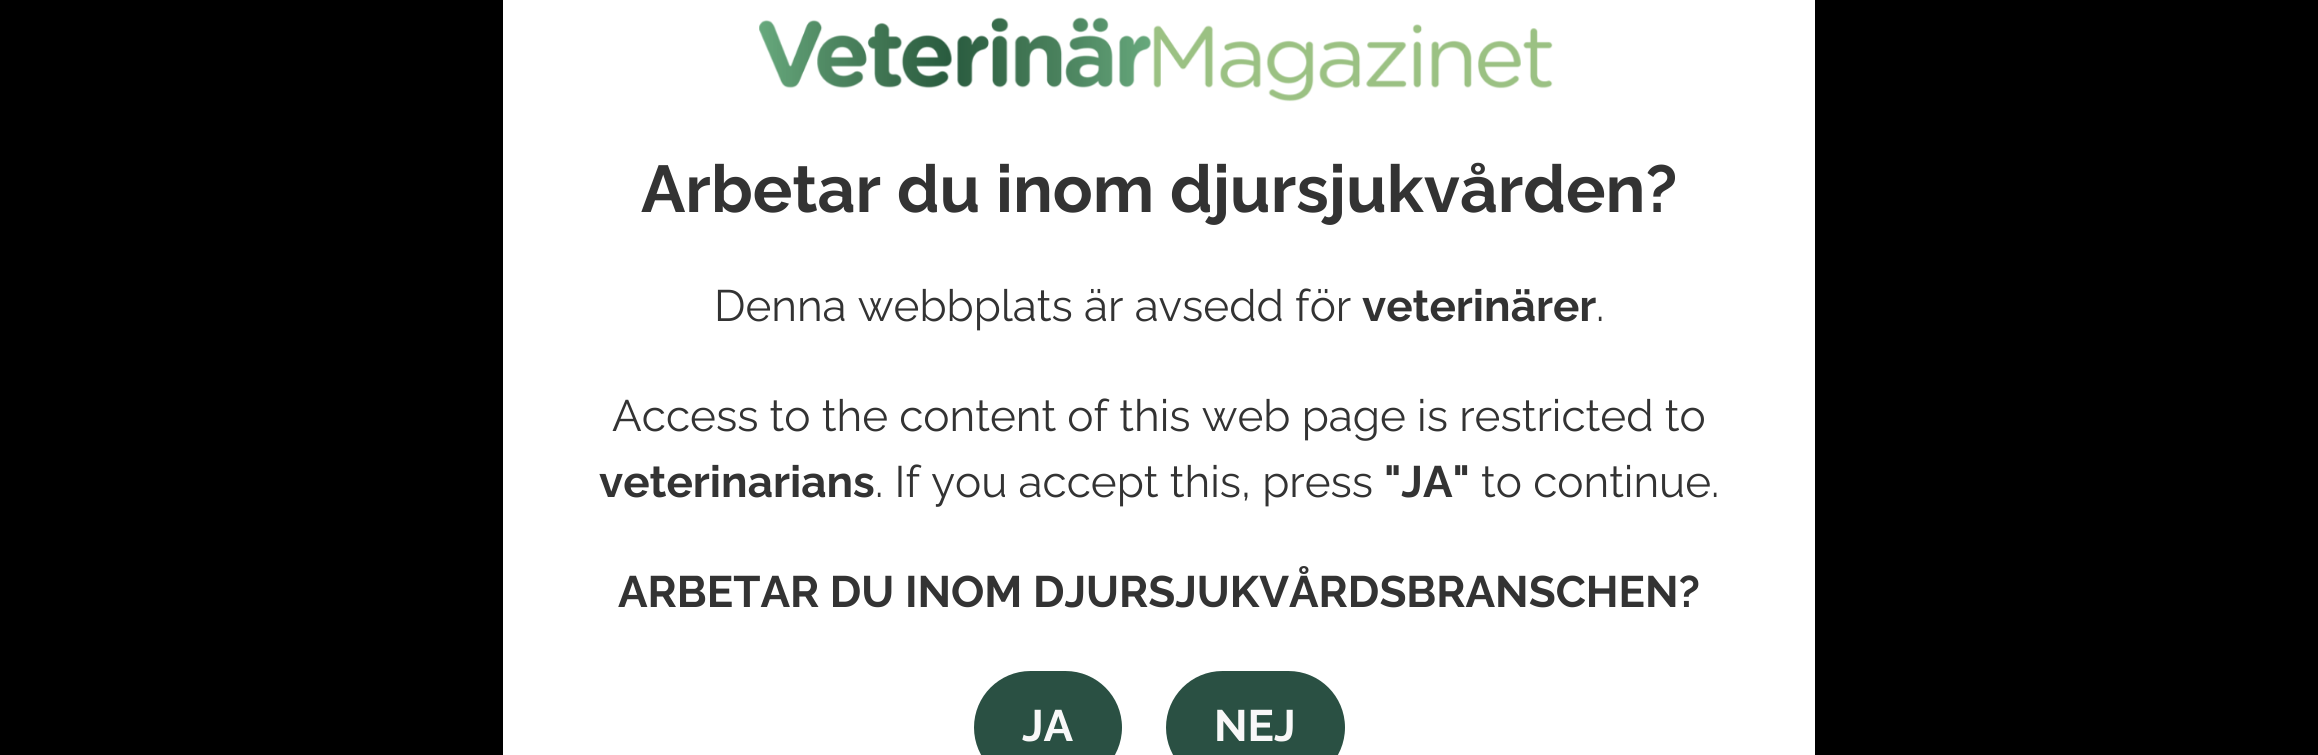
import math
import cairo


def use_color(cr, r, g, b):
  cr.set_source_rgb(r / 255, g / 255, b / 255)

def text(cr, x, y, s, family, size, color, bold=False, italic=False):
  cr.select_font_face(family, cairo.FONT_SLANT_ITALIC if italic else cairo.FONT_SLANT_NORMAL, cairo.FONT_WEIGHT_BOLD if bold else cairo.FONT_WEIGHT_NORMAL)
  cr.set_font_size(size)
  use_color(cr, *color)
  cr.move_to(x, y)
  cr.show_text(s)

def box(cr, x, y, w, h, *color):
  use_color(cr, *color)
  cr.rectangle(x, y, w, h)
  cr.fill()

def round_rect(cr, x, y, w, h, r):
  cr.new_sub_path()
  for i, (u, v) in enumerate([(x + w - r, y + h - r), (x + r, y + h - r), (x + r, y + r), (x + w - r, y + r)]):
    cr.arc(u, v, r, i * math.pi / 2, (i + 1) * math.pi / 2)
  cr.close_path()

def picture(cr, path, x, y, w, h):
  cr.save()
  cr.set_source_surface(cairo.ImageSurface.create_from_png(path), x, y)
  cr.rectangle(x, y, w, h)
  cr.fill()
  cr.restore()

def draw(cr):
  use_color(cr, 0, 0, 0)
  cr.paint()
  box(cr, 503, 0, 1312, 755, 255, 255, 255)
  picture(cr, "img_01.png", 759, 17, 794, 85)
  use_color(cr, 42, 80, 67)
  round_rect(cr, 974, 671, 148, 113, 56.5)
  cr.fill()
  round_rect(cr, 1166, 671, 179, 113, 56.5)
  cr.fill()
  text(cr, 641, 212, "Arbetar du inom djursjukvården?", "Raleway", 66, (51, 51, 51), bold=True)
  text(cr, 714, 321, "Denna webbplats är avsedd för", "Raleway", 44, (51, 51, 51))
  text(cr, 1362, 321, "veterinärer", "Raleway", 44, (51, 51, 51), bold=True)
  text(cr, 1596, 321, ".", "Raleway", 44, (51, 51, 51))
  text(cr, 612, 431, "Access to the content of this web page is restricted to", "Raleway", 44, (51, 51, 51))
  text(cr, 599, 497, "veterinarians", "Raleway", 44, (51, 51, 51), bold=True)
  text(cr, 875, 497, ". If you accept this, press", "Raleway", 44, (51, 51, 51))
  text(cr, 1384, 497, "\"JA\"", "Raleway", 44, (51, 51, 51), bold=True)
  text(cr, 1481, 497, "to continue.", "Raleway", 44, (51, 51, 51))
  text(cr, 618, 607, "ARBETAR DU INOM DJURSJUKVÅRDSBRANSCHEN?", "Raleway", 44, (51, 51, 51), bold=True)
  text(cr, 1022, 741, "JA", "Raleway", 44, (248, 248, 248), bold=True)
  text(cr, 1214, 741, "NEJ", "Raleway", 44, (248, 248, 248), bold=True)


surface = cairo.ImageSurface(cairo.FORMAT_RGB24, 2318, 755)
cr = cairo.Context(surface)
options = cairo.FontOptions()
options.set_hint_metrics(cairo.HINT_METRICS_OFF)
options.set_hint_style(cairo.HINT_STYLE_NONE)
cr.set_font_options(options)
cr.set_miter_limit(4)
draw(cr)
surface.write_to_png("out.png")
